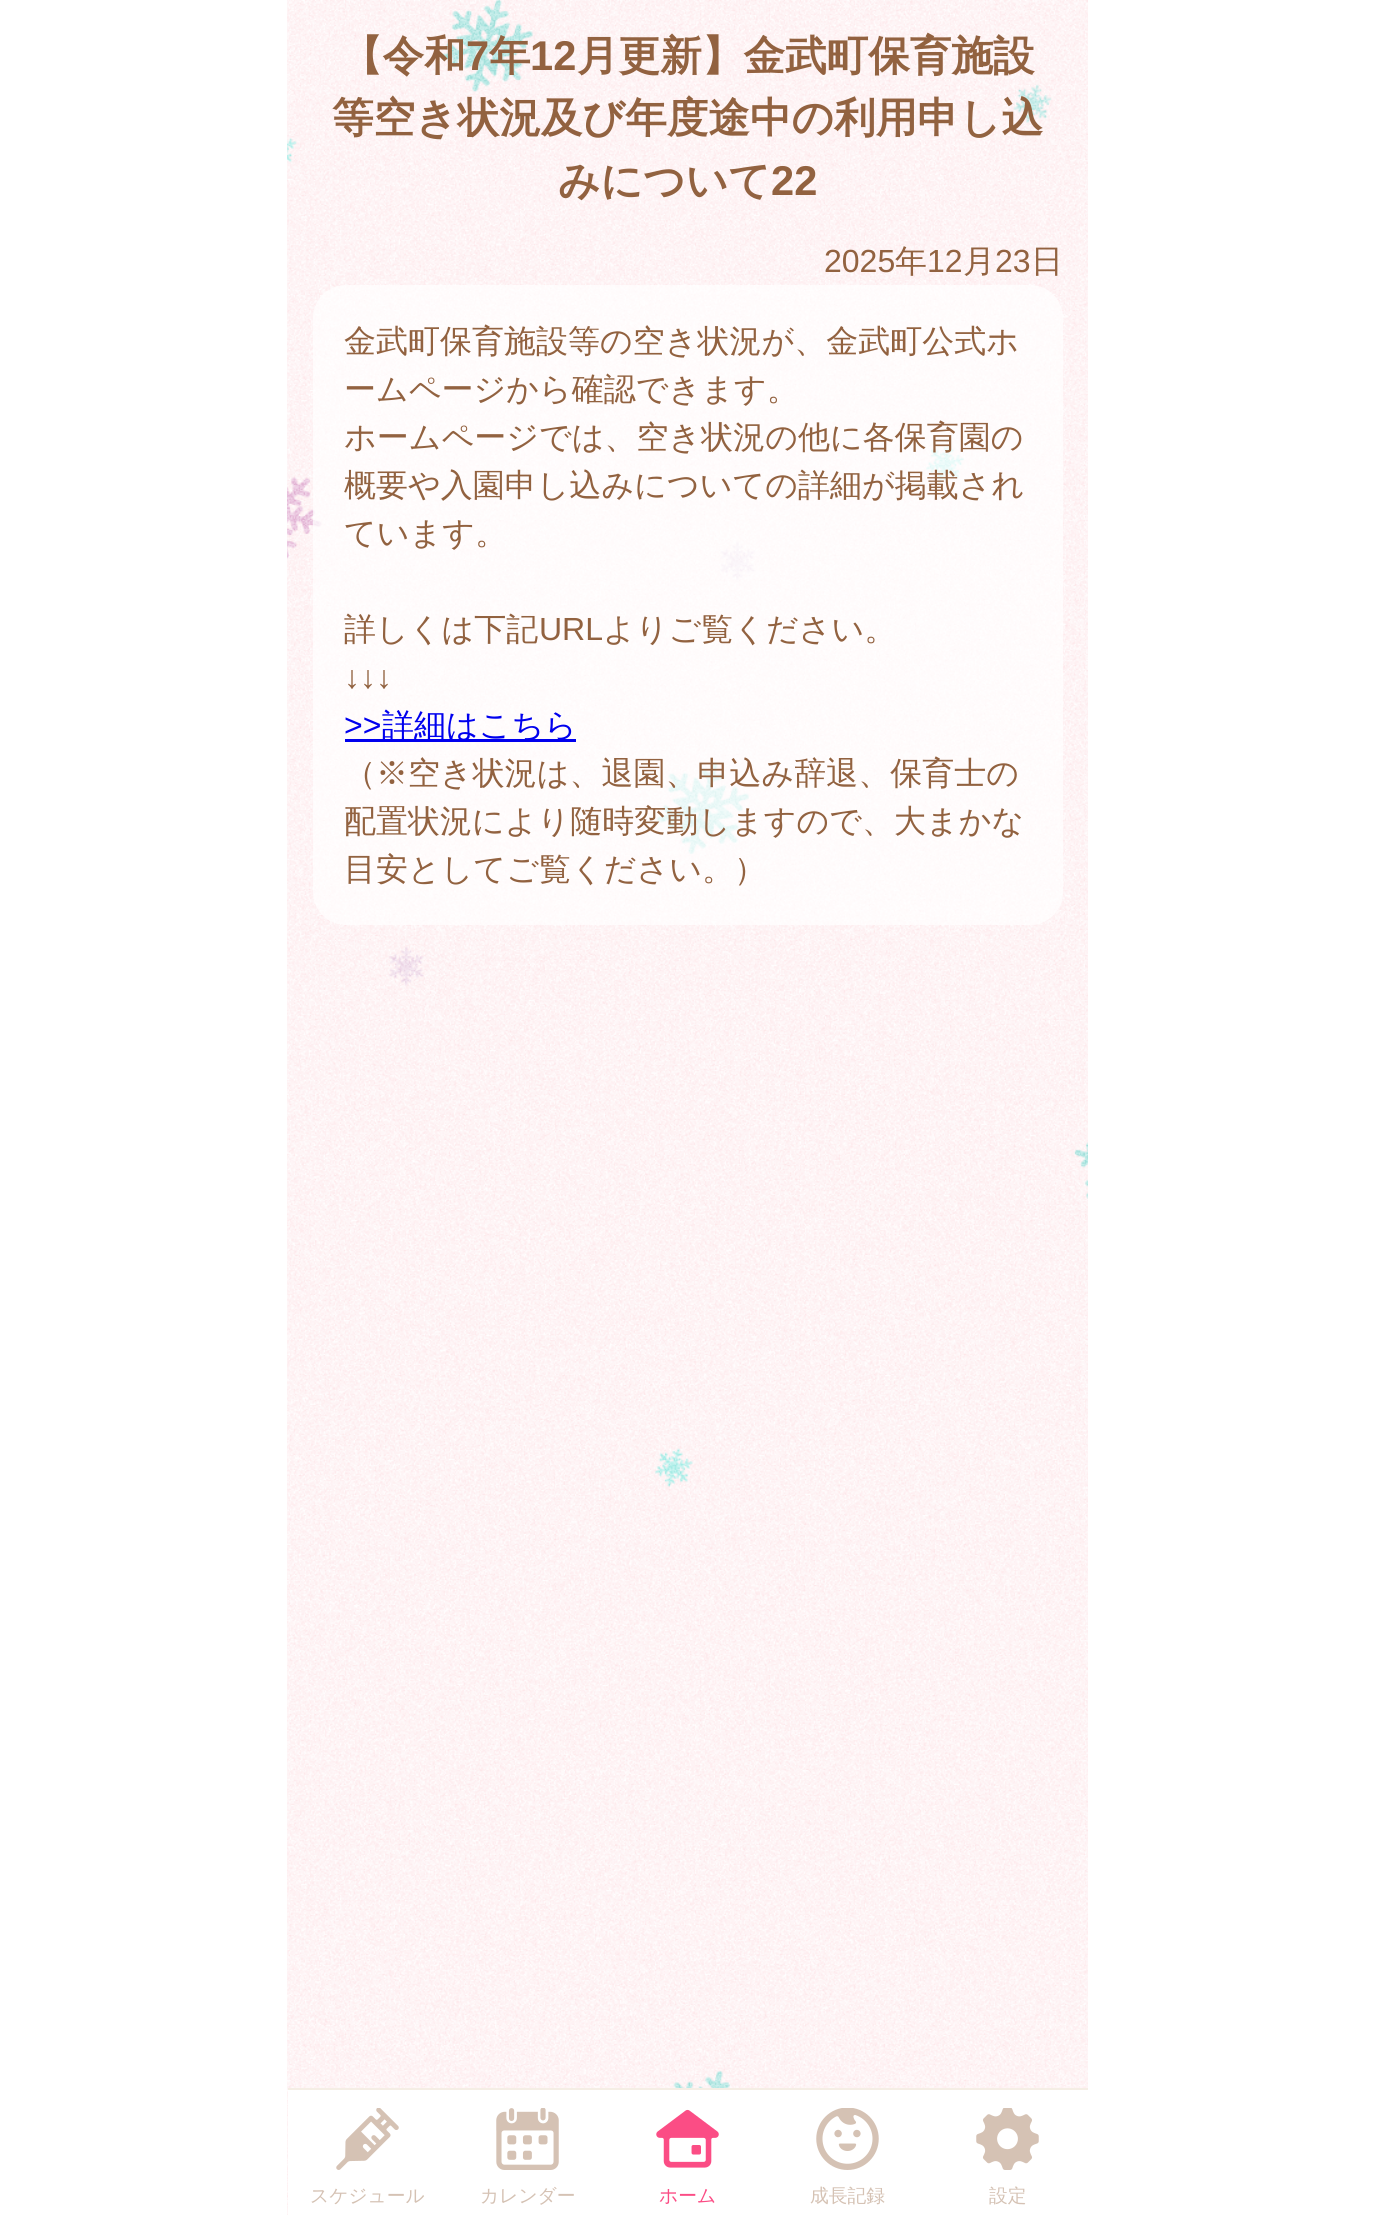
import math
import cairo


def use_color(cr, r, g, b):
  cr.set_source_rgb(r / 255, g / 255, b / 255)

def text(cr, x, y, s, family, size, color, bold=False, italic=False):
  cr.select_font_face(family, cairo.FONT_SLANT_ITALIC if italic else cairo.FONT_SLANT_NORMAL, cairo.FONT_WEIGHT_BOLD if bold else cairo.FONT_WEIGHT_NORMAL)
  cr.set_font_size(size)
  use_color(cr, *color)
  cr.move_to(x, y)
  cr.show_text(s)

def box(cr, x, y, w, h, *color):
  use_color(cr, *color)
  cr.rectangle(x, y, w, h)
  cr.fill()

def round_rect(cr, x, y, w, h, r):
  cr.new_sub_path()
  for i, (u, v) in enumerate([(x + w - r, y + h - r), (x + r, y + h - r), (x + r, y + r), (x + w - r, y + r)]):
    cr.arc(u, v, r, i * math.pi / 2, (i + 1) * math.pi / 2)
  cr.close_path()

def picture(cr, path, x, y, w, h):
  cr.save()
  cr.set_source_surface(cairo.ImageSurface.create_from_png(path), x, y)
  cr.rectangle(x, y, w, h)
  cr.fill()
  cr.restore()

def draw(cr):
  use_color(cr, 255, 255, 255)
  cr.paint()
  picture(cr, "img_01.png", 287, 0, 801, 2215)
  cr.set_source_rgba(1, 1, 1, 0.7)
  round_rect(cr, 313, 285, 750, 640, 33)
  cr.fill()
  box(cr, 345, 739, 231, 3, 0, 0, 238)
  box(cr, 288, 2088, 800, 2, 245, 238, 229)
  box(cr, 288, 2090, 800, 125, 255, 255, 255)
  picture(cr, "img_02.png", 336, 2108, 63, 62)
  picture(cr, "img_03.png", 496, 2108, 63, 62)
  picture(cr, "img_04.png", 656, 2109, 63, 59)
  picture(cr, "img_05.png", 816, 2108, 63, 62)
  picture(cr, "img_06.png", 976, 2108, 63, 62)
  text(cr, 341, 70, "【令和", "WenQuanYi Zen Hei", 41.6, (146, 98, 64), bold=True)
  text(cr, 466, 70, "7", "Liberation Sans", 41.6, (146, 98, 64), bold=True)
  text(cr, 489, 70, "年", "WenQuanYi Zen Hei", 41.6, (146, 98, 64), bold=True)
  text(cr, 530, 70, "12", "Liberation Sans", 41.6, (146, 98, 64), bold=True)
  text(cr, 577, 70, "月更新】金武町保育施設", "WenQuanYi Zen Hei", 41.6, (146, 98, 64), bold=True)
  text(cr, 332, 132, "等空き状況及び年度途中の利用申し込", "WenQuanYi Zen Hei", 41.6, (146, 98, 64), bold=True)
  text(cr, 558, 195, "みについて", "WenQuanYi Zen Hei", 41.6, (146, 98, 64), bold=True)
  text(cr, 771, 195, "22", "Liberation Sans", 41.6, (146, 98, 64), bold=True)
  text(cr, 824, 272, "2025", "Liberation Sans", 32, (146, 98, 64))
  text(cr, 895, 272, "年", "WenQuanYi Zen Hei Medium", 32, (146, 98, 64))
  text(cr, 927, 272, "12", "Liberation Sans", 32, (146, 98, 64))
  text(cr, 963, 272, "月", "WenQuanYi Zen Hei Medium", 32, (146, 98, 64))
  text(cr, 995, 272, "23", "Liberation Sans", 32, (146, 98, 64))
  text(cr, 1031, 272, "日", "WenQuanYi Zen Hei Medium", 32, (146, 98, 64))
  text(cr, 344, 352, "金武町保育施設等の空き状況が、金武町公式ホ", "WenQuanYi Zen Hei Medium", 32, (146, 98, 64))
  text(cr, 344, 400, "ームページから確認できます。", "WenQuanYi Zen Hei Medium", 32, (146, 98, 64))
  text(cr, 344, 448, "ホームページでは、空き状況の他に各保育園の", "WenQuanYi Zen Hei Medium", 32, (146, 98, 64))
  text(cr, 344, 496, "概要や入園申し込みについての詳細が掲載され", "WenQuanYi Zen Hei Medium", 32, (146, 98, 64))
  text(cr, 344, 544, "ています。", "WenQuanYi Zen Hei Medium", 32, (146, 98, 64))
  text(cr, 344, 640, "詳しくは下記", "WenQuanYi Zen Hei Medium", 32, (146, 98, 64))
  text(cr, 539, 640, "URL", "Liberation Sans", 32, (146, 98, 64))
  text(cr, 603, 640, "よりご覧ください。", "WenQuanYi Zen Hei Medium", 32, (146, 98, 64))
  text(cr, 344, 688, "↓↓↓", "Liberation Sans", 32, (146, 98, 64))
  text(cr, 344, 736, ">>", "Liberation Sans", 32, (0, 0, 238))
  text(cr, 382, 736, "詳細はこちら", "WenQuanYi Zen Hei Medium", 32, (0, 0, 238))
  text(cr, 344, 784, "（※空き状況は、退園、申込み辞退、保育士の", "WenQuanYi Zen Hei Medium", 32, (146, 98, 64))
  text(cr, 344, 832, "配置状況により随時変動しますので、大まかな", "WenQuanYi Zen Hei Medium", 32, (146, 98, 64))
  text(cr, 344, 880, "目安としてご覧ください。）", "WenQuanYi Zen Hei Medium", 32, (146, 98, 64))
  text(cr, 310, 2202, "スケジュール", "WenQuanYi Zen Hei Medium", 18.75, (213, 194, 180))
  text(cr, 480, 2202, "カレンダー", "WenQuanYi Zen Hei Medium", 18.75, (213, 194, 180))
  text(cr, 659, 2202, "ホーム", "WenQuanYi Zen Hei Medium", 18.75, (251, 77, 133))
  text(cr, 810, 2202, "成長記録", "WenQuanYi Zen Hei Medium", 18.75, (213, 194, 180))
  text(cr, 989, 2202, "設定", "WenQuanYi Zen Hei Medium", 18.75, (213, 194, 180))


surface = cairo.ImageSurface(cairo.FORMAT_RGB24, 1375, 2215)
cr = cairo.Context(surface)
options = cairo.FontOptions()
options.set_hint_metrics(cairo.HINT_METRICS_OFF)
options.set_hint_style(cairo.HINT_STYLE_NONE)
cr.set_font_options(options)
cr.set_miter_limit(4)
draw(cr)
surface.write_to_png("out.png")
